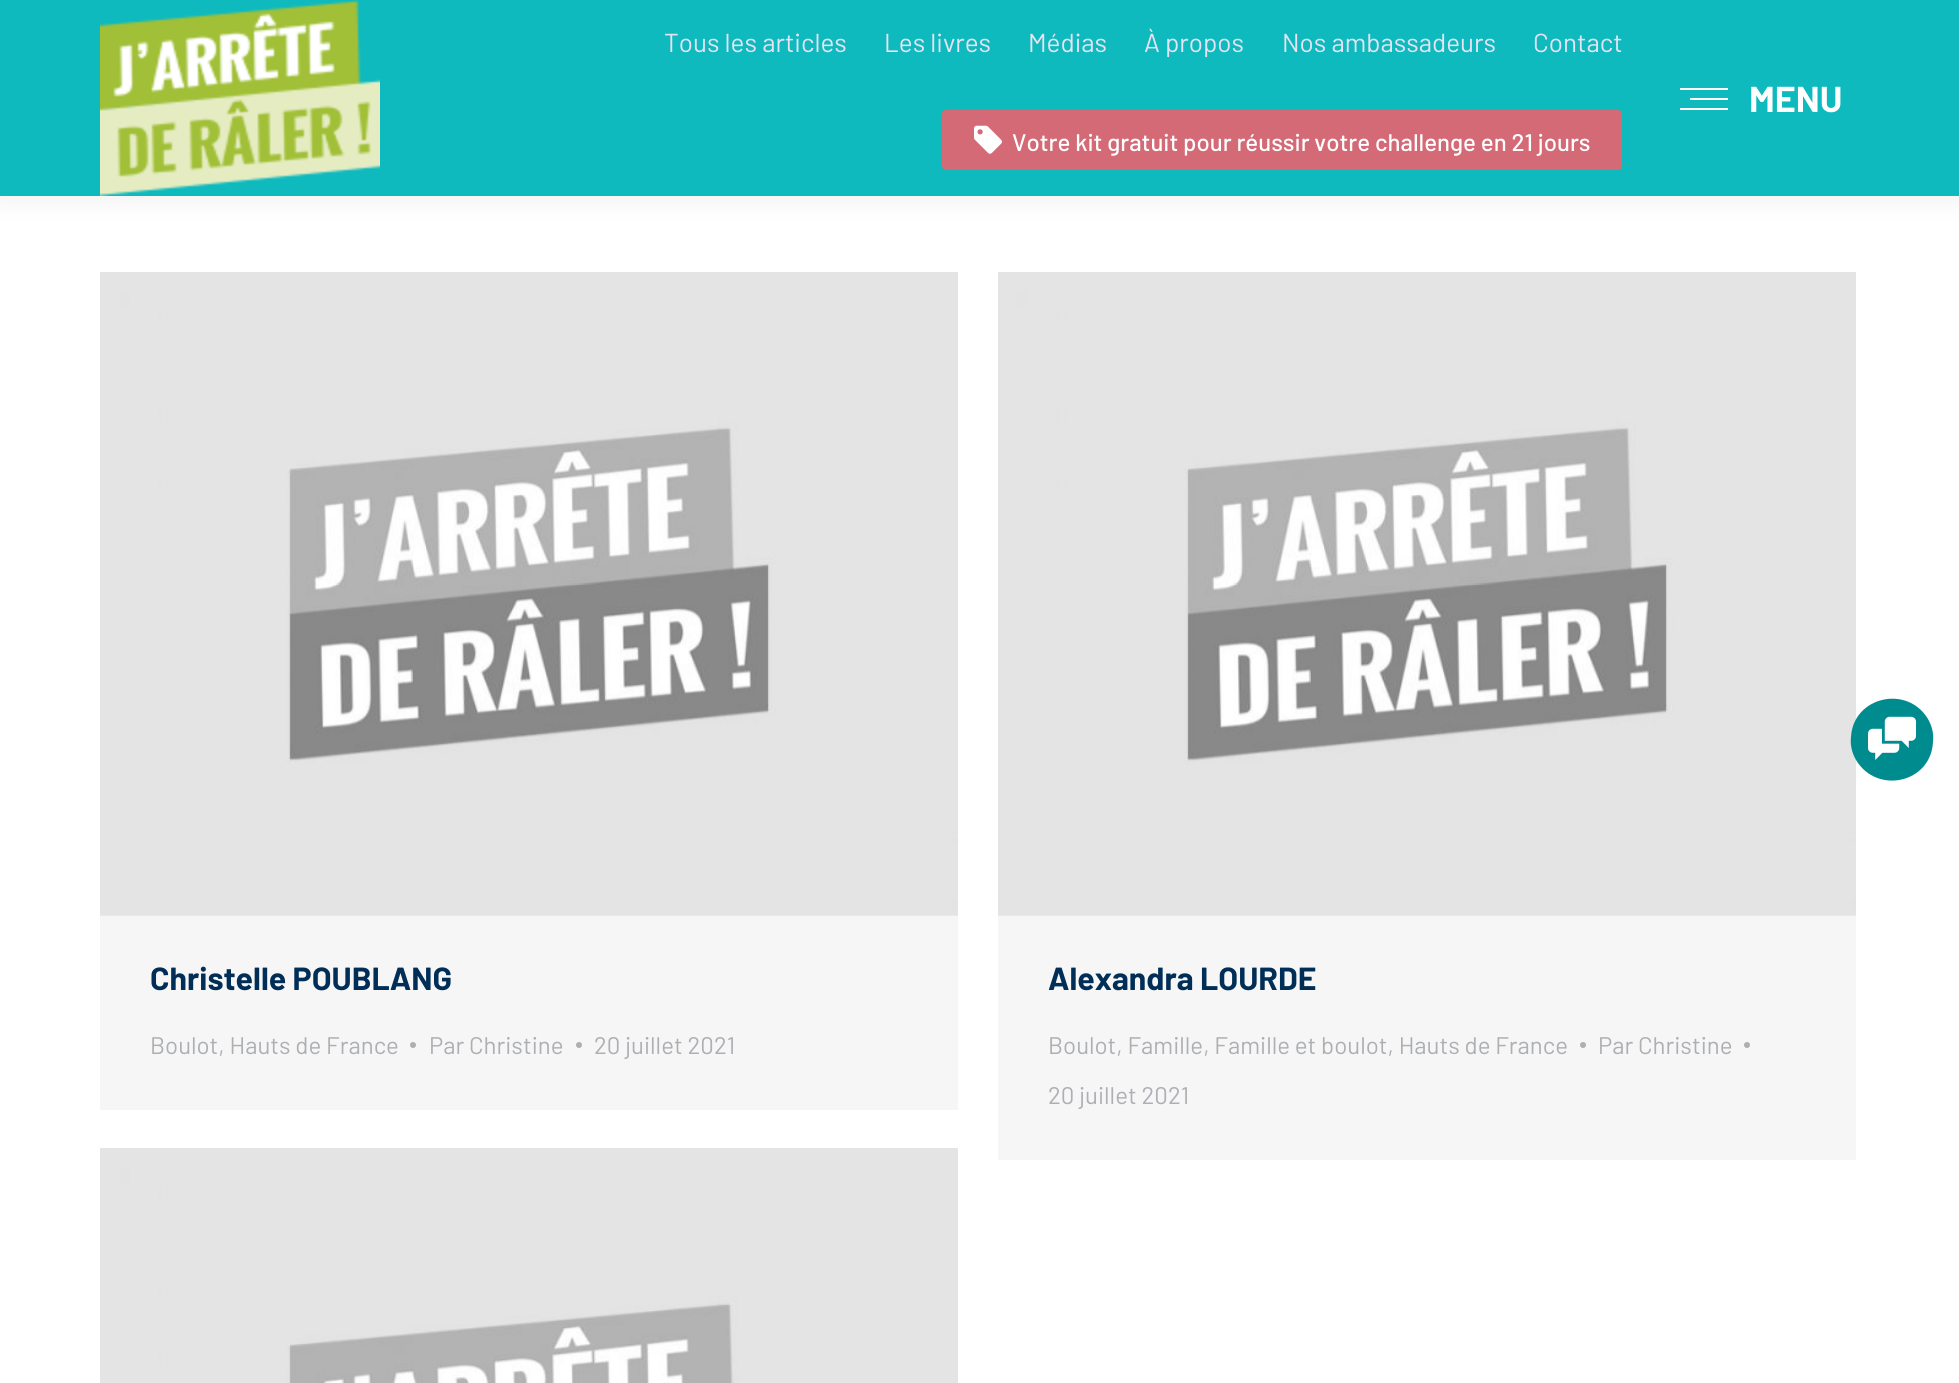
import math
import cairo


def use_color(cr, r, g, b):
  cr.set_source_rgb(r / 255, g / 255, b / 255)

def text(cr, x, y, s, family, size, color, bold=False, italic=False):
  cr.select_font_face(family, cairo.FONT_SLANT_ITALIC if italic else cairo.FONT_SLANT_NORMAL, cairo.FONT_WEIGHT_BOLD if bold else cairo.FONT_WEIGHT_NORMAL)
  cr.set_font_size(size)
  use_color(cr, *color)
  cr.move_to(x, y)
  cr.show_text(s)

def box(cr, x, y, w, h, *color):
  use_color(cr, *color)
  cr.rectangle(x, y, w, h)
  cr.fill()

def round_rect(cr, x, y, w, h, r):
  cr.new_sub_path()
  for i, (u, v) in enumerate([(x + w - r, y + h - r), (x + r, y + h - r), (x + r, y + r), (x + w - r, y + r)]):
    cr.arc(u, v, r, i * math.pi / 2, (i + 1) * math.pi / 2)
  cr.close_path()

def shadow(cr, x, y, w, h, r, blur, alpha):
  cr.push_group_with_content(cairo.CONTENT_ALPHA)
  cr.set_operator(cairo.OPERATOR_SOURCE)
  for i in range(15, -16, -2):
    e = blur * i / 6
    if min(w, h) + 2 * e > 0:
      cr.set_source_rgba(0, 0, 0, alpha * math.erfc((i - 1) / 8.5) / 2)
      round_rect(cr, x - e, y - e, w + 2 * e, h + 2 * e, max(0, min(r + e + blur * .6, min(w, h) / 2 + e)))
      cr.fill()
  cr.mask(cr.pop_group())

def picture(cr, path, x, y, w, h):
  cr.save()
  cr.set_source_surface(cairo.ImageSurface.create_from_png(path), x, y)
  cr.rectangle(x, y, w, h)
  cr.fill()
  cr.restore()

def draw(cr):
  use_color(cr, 255, 255, 255)
  cr.paint()
  use_color(cr, 0, 0, 0)
  shadow(cr, -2, -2, 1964, 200, 0, 15, 0.07)
  box(cr, 0, 0, 1959, 196, 15, 186, 190)
  picture(cr, "img_01.png", 100, 0, 280, 196)
  use_color(cr, 213, 106, 119)
  round_rect(cr, 942, 110, 680, 60, 4)
  cr.fill()
  picture(cr, "img_02.png", 974, 125, 28, 29)
  box(cr, 1680, 88, 48, 2, 255, 255, 255)
  box(cr, 1690, 98, 38, 2, 255, 255, 255)
  box(cr, 1680, 108, 48, 2, 255, 255, 255)
  box(cr, 100, 915, 858, 195, 246, 246, 246)
  picture(cr, "img_03.png", 100, 272, 858, 644)
  use_color(cr, 173, 175, 179)
  cr.arc(413, 1045, 3, 0, 2 * math.pi)
  cr.fill()
  cr.arc(579, 1045, 3, 0, 2 * math.pi)
  cr.fill()
  box(cr, 998, 915, 858, 245, 246, 246, 246)
  picture(cr, "img_03.png", 998, 272, 858, 644)
  use_color(cr, 173, 175, 179)
  cr.arc(1583, 1045, 3, 0, 2 * math.pi)
  cr.fill()
  cr.arc(1747, 1045, 3, 0, 2 * math.pi)
  cr.fill()
  picture(cr, "img_04.png", 100, 1148, 858, 235)
  use_color(cr, 0, 140, 143)
  cr.new_path()
  cr.move_to(1928, 719)
  cr.curve_to(1932, 726, 1934, 734, 1933, 742)
  cr.curve_to(1931, 783, 1877, 795, 1856, 760)
  cr.curve_to(1852, 753, 1850, 745, 1851, 737)
  cr.curve_to(1853, 697, 1907, 684, 1928, 719)
  cr.close_path()
  cr.fill()
  picture(cr, "img_05.png", 1868, 716, 48, 44)
  text(cr, 664, 52, "Tous les articles", "Barlow", 26, (231, 227, 242))
  text(cr, 884, 52, "Les livres", "Barlow", 26, (231, 227, 242))
  text(cr, 1028, 52, "Médias", "Barlow", 26, (231, 227, 242))
  text(cr, 1144, 52, "À propos", "Barlow", 26, (231, 227, 242))
  text(cr, 1282, 52, "Nos ambassadeurs", "Barlow", 26, (231, 227, 242))
  text(cr, 1533, 52, "Contact", "Barlow", 26, (231, 227, 242))
  text(cr, 1012, 151, "Votre kit gratuit pour réussir votre challenge en 21 jours", "Barlow Medium", 24, (255, 255, 255))
  text(cr, 1749, 112, "MENU", "Barlow", 36, (255, 255, 255), bold=True)
  text(cr, 150, 990, "Christelle POUBLANG", "Barlow", 32, (0, 46, 86), bold=True)
  text(cr, 150, 1054, "Boulot, Hauts de France", "Barlow", 24, (173, 175, 179))
  text(cr, 429, 1054, "Par Christine", "Barlow", 24, (173, 175, 179))
  text(cr, 594, 1054, "20 juillet 2021", "Barlow", 24, (173, 175, 179))
  text(cr, 1048, 990, "Alexandra LOURDE", "Barlow", 32, (0, 46, 86), bold=True)
  text(cr, 1048, 1054, "Boulot, Famille, Famille et boulot, Hauts de France", "Barlow", 24, (173, 175, 179))
  text(cr, 1598, 1054, "Par Christine", "Barlow", 24, (173, 175, 179))
  text(cr, 1048, 1104, "20 juillet 2021", "Barlow", 24, (173, 175, 179))


surface = cairo.ImageSurface(cairo.FORMAT_RGB24, 1959, 1383)
cr = cairo.Context(surface)
options = cairo.FontOptions()
options.set_hint_metrics(cairo.HINT_METRICS_OFF)
options.set_hint_style(cairo.HINT_STYLE_NONE)
cr.set_font_options(options)
cr.set_miter_limit(4)
draw(cr)
surface.write_to_png("out.png")
